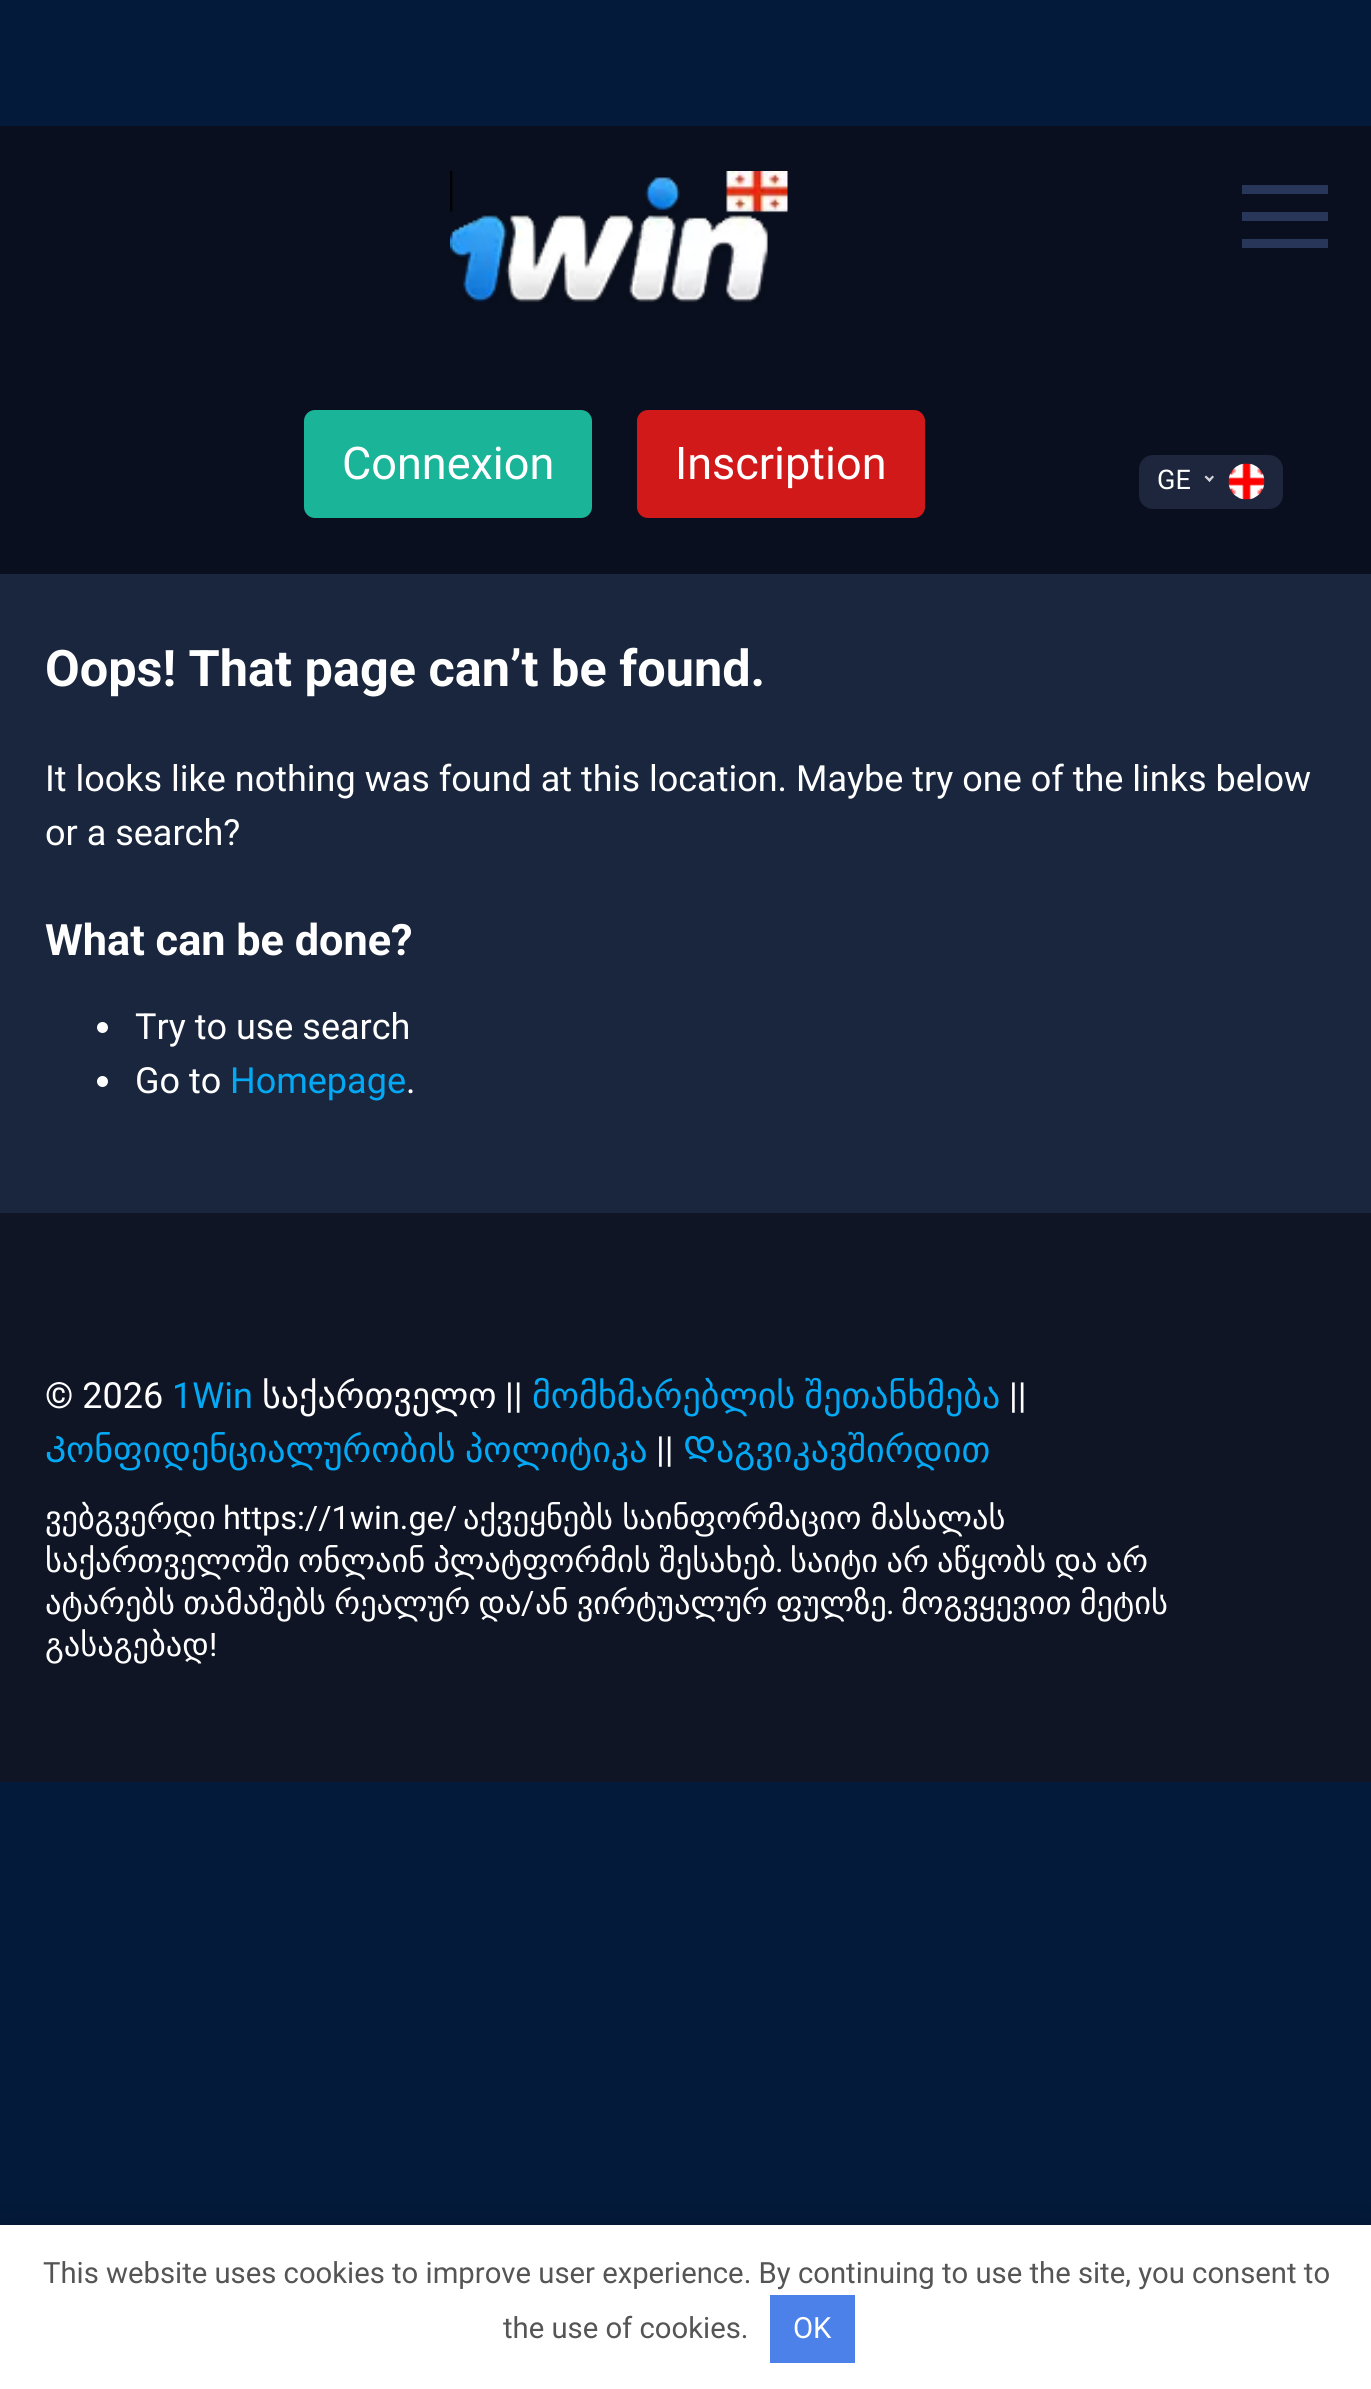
import math
import cairo


def use_color(cr, r, g, b):
  cr.set_source_rgb(r / 255, g / 255, b / 255)

def text(cr, x, y, s, family, size, color, bold=False, italic=False):
  cr.select_font_face(family, cairo.FONT_SLANT_ITALIC if italic else cairo.FONT_SLANT_NORMAL, cairo.FONT_WEIGHT_BOLD if bold else cairo.FONT_WEIGHT_NORMAL)
  cr.set_font_size(size)
  use_color(cr, *color)
  cr.move_to(x, y)
  cr.show_text(s)

def spaced_text(cr, x, y, s, letter, word):
  cr.move_to(x, y)
  for ch in s:
    cr.show_text(ch)
    cr.rel_move_to(letter + word * (ch == ' '), 0)

def box(cr, x, y, w, h, *color):
  use_color(cr, *color)
  cr.rectangle(x, y, w, h)
  cr.fill()

def round_rect(cr, x, y, w, h, r):
  cr.new_sub_path()
  for i, (u, v) in enumerate([(x + w - r, y + h - r), (x + r, y + h - r), (x + r, y + r), (x + w - r, y + r)]):
    cr.arc(u, v, r, i * math.pi / 2, (i + 1) * math.pi / 2)
  cr.close_path()

def shadow(cr, x, y, w, h, r, blur, alpha):
  cr.push_group_with_content(cairo.CONTENT_ALPHA)
  cr.set_operator(cairo.OPERATOR_SOURCE)
  for i in range(15, -16, -2):
    e = blur * i / 6
    if min(w, h) + 2 * e > 0:
      cr.set_source_rgba(0, 0, 0, alpha * math.erfc((i - 1) / 8.5) / 2)
      round_rect(cr, x - e, y - e, w + 2 * e, h + 2 * e, max(0, min(r + e + blur * .6, min(w, h) / 2 + e)))
      cr.fill()
  cr.mask(cr.pop_group())

def picture(cr, path, x, y, w, h):
  cr.save()
  cr.set_source_surface(cairo.ImageSurface.create_from_png(path), x, y)
  cr.rectangle(x, y, w, h)
  cr.fill()
  cr.restore()

def draw(cr):
  use_color(cr, 3, 26, 58)
  cr.paint()
  box(cr, 0, 126, 1371, 448, 9, 15, 30)
  picture(cr, "img_01.png", 450, 171, 338, 132)
  box(cr, 1242, 185, 86, 9, 39, 54, 89)
  box(cr, 1242, 239, 86, 9, 39, 54, 89)
  box(cr, 1242, 212, 86, 9, 39, 54, 89)
  use_color(cr, 26, 180, 153)
  round_rect(cr, 304, 410, 288, 108, 11)
  cr.fill()
  use_color(cr, 208, 25, 24)
  round_rect(cr, 637, 410, 288, 108, 11)
  cr.fill()
  use_color(cr, 30, 38, 61)
  round_rect(cr, 1139, 455, 144, 54, 14)
  cr.fill()
  use_color(cr, 210, 212, 216)
  cr.new_path()
  cr.move_to(1214, 477)
  cr.line_to(1209.5, 482)
  cr.line_to(1208, 480)
  cr.line_to(1212.5, 475.5)
  cr.close_path()
  cr.fill()
  cr.new_path()
  cr.move_to(1211, 480)
  cr.line_to(1209.5, 482)
  cr.line_to(1204.5, 477)
  cr.line_to(1206, 475.5)
  cr.close_path()
  cr.fill()
  picture(cr, "img_02.png", 1228, 463, 37, 37)
  box(cr, 0, 574, 1371, 639, 25, 38, 61)
  use_color(cr, 255, 255, 255)
  cr.arc(102.5, 1027.5, 5.5, 0, 2 * math.pi)
  cr.fill()
  cr.arc(102.5, 1081.5, 5.5, 0, 2 * math.pi)
  cr.fill()
  box(cr, 0, 1213, 1371, 569, 16, 21, 38)
  use_color(cr, 0, 0, 0)
  shadow(cr, 0, 2225, 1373, 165, 0, 17, 0.2)
  box(cr, 0, 2225, 1371, 164, 255, 255, 255)
  box(cr, 770, 2295, 85, 68, 75, 129, 232)
  text(cr, 342, 479, "Connexion", "Roboto", 45, (255, 255, 255))
  text(cr, 675, 479, "Inscription", "Roboto", 45, (255, 255, 255))
  text(cr, 1157, 489, "GE", "Roboto", 27, (255, 255, 255))
  text(cr, 45, 686, "Oops! That page can’t be found.", "Roboto", 50.4, (255, 255, 255), bold=True)
  text(cr, 45, 791, "It looks like nothing was found at this location. Maybe try one of the links below", "Roboto", 36, (255, 255, 255))
  text(cr, 45, 845, "or a search?", "Roboto", 36, (255, 255, 255))
  text(cr, 45, 955, "What can be done?", "Roboto", 43.25, (255, 255, 255), bold=True)
  text(cr, 135, 1039, "Try to use search", "Roboto", 36, (255, 255, 255))
  text(cr, 135, 1093, "Go to", "Roboto", 36, (255, 255, 255))
  text(cr, 230, 1093, "Homepage", "Roboto", 36, (3, 169, 244))
  text(cr, 406, 1093, ".", "Roboto", 36, (255, 255, 255))
  text(cr, 45, 1408, "© 2026", "Roboto", 36, (255, 255, 255))
  text(cr, 172, 1408, "1Win", "Roboto", 36, (3, 169, 244))
  text(cr, 262, 1408, "საქართველო", "DejaVu Sans", 36, (255, 255, 255))
  text(cr, 505, 1408, "||", "Roboto", 36, (255, 255, 255))
  cr.select_font_face("DejaVu Sans")
  use_color(cr, 3, 169, 244)
  spaced_text(cr, 532, 1408, "მომხმარებლის შეთანხმება", 0, -2)
  text(cr, 1009, 1408, "||", "Roboto", 36, (255, 255, 255))
  text(cr, 45, 1462, "Კ", "Noto Sans Georgian", 36, (3, 169, 244))
  cr.select_font_face("DejaVu Sans")
  spaced_text(cr, 66, 1462, "ონფიდენციალურობის პოლიტიკა", 0, -2)
  text(cr, 656, 1462, "||", "Roboto", 36, (255, 255, 255))
  text(cr, 683, 1462, "Დ", "Noto Sans Georgian", 36, (3, 169, 244))
  text(cr, 716, 1462, "აგვიკავშირდით", "DejaVu Sans", 36, (3, 169, 244))
  text(cr, 45, 1529, "ვებგვერდი", "DejaVu Sans", 32.4, (255, 255, 255))
  text(cr, 223, 1529, "https://1win.ge/", "Roboto", 32.4, (255, 255, 255))
  cr.select_font_face("DejaVu Sans")
  spaced_text(cr, 463, 1529, "აქვეყნებს საინფორმაციო მასალას", 0, -1)
  spaced_text(cr, 45, 1572, "საქართველოში ონლაინ პლატფორმის შესახებ", 0, -2)
  text(cr, 775, 1572, ".", "Roboto", 32.4, (255, 255, 255))
  cr.select_font_face("DejaVu Sans")
  spaced_text(cr, 790, 1572, "საიტი არ აწყობს და არ", 0, -2)
  spaced_text(cr, 45, 1614, "ატარებს თამაშებს რეალურ და", 0, -2)
  text(cr, 521, 1614, "/", "Roboto", 32.4, (255, 255, 255))
  cr.select_font_face("DejaVu Sans")
  spaced_text(cr, 535, 1614, "ან ვირტუალურ ფულზე", 0, -2)
  text(cr, 886, 1614, ".", "Roboto", 32.4, (255, 255, 255))
  cr.select_font_face("DejaVu Sans")
  spaced_text(cr, 901, 1614, "მოგვყევით მეტის", 0, -2)
  text(cr, 45, 1656, "გასაგებად", "DejaVu Sans", 32.4, (255, 255, 255))
  text(cr, 209, 1656, "!", "Roboto", 32.4, (255, 255, 255))
  text(cr, 43, 2283, "This website uses cookies to improve user experience. By continuing to use the site, you consent to", "Roboto", 29.25, (85, 85, 85))
  text(cr, 503, 2338, "the use of cookies.", "Roboto", 29.25, (85, 85, 85))
  text(cr, 793, 2338, "OK", "Roboto", 29.25, (255, 255, 255))


surface = cairo.ImageSurface(cairo.FORMAT_RGB24, 1371, 2389)
cr = cairo.Context(surface)
options = cairo.FontOptions()
options.set_hint_metrics(cairo.HINT_METRICS_OFF)
options.set_hint_style(cairo.HINT_STYLE_NONE)
cr.set_font_options(options)
cr.set_miter_limit(4)
draw(cr)
surface.write_to_png("out.png")
